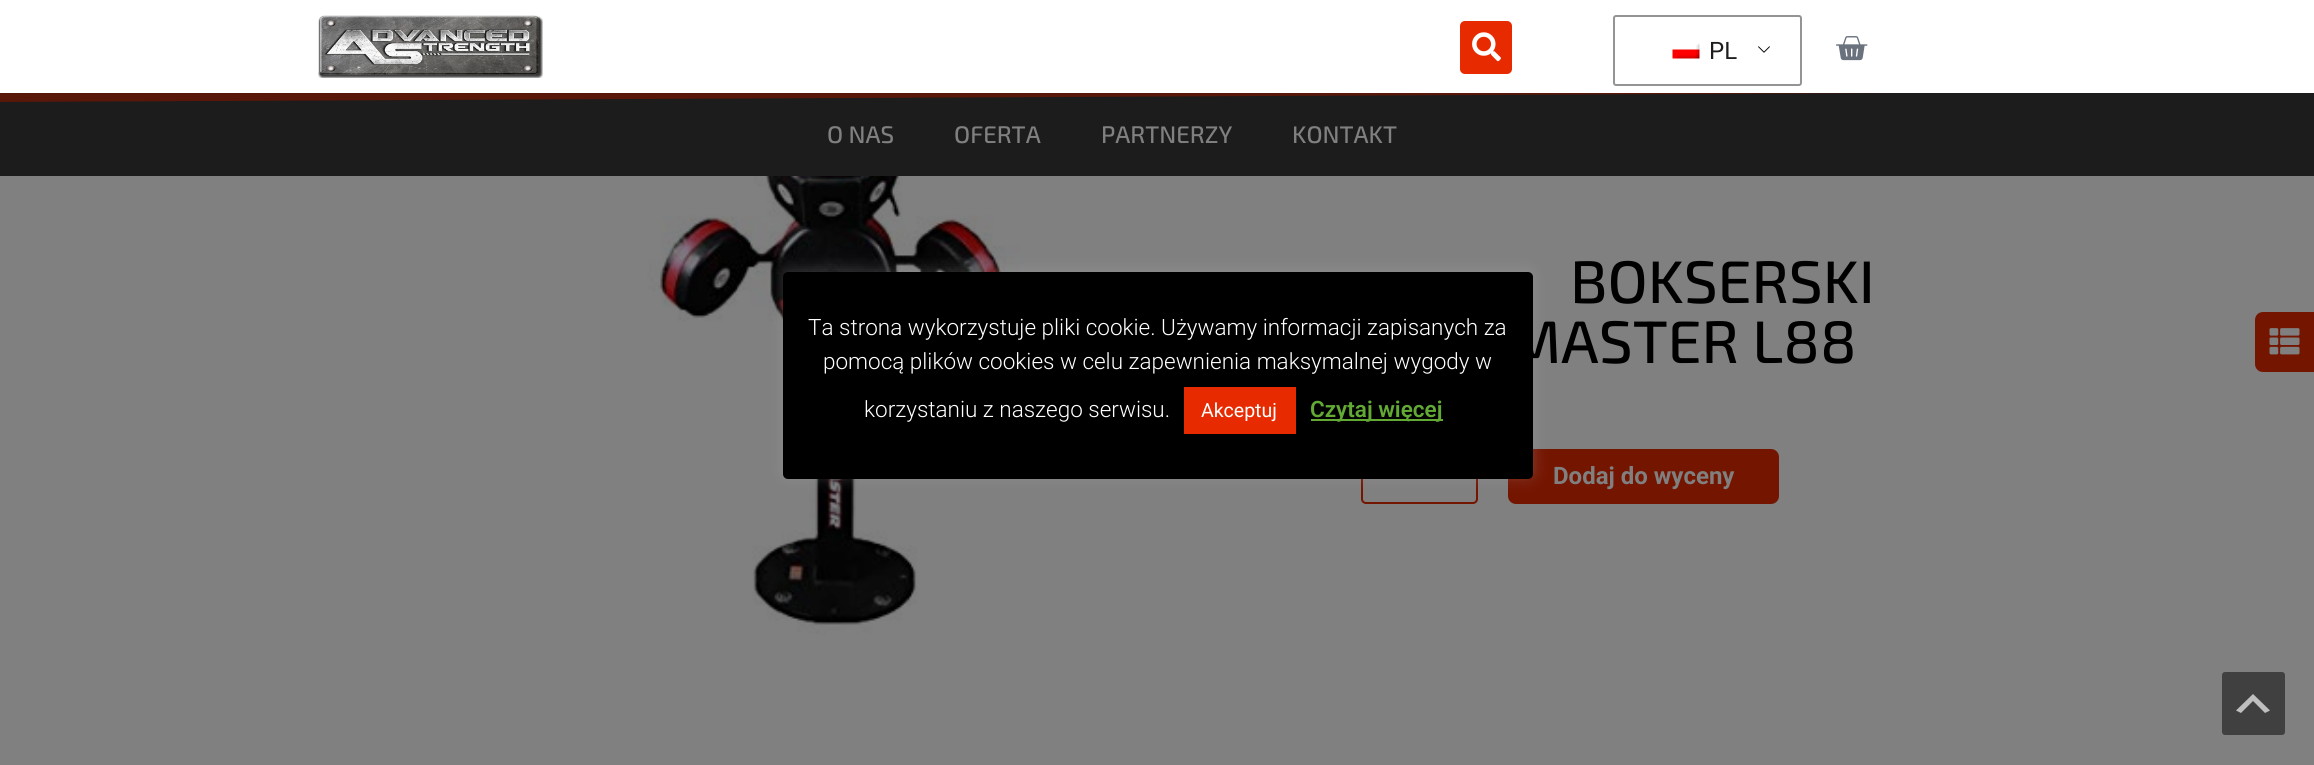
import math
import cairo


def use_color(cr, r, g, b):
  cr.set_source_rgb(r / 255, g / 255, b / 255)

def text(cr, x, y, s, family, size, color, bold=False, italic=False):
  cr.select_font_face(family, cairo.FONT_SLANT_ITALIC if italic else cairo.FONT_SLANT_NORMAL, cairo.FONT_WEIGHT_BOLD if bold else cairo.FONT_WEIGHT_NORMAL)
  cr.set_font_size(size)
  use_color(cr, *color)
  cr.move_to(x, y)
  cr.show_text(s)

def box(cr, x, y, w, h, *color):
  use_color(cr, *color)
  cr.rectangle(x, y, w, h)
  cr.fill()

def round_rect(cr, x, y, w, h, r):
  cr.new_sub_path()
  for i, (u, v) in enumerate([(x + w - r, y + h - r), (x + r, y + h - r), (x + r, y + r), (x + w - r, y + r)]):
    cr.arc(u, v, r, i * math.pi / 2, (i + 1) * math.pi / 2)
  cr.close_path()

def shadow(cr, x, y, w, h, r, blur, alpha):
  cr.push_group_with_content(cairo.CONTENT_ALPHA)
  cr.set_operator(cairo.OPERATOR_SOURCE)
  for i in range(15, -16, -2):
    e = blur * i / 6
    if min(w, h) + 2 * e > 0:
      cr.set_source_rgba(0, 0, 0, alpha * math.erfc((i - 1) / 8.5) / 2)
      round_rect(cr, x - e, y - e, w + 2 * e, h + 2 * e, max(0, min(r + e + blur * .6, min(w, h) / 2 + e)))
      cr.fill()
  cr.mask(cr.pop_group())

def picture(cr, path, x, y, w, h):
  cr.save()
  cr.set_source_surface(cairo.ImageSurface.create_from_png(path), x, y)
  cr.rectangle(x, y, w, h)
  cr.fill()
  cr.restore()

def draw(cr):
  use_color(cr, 128, 128, 128)
  cr.paint()
  box(cr, 0, 93, 2314, 83, 28, 28, 28)
  cr.set_source_rgba(0.455, 0.082, 0, 0.69)
  cr.new_path()
  cr.move_to(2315, 91)
  cr.line_to(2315, 90)
  cr.line_to(-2, 90)
  cr.line_to(-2, 102)
  cr.close_path()
  cr.fill()
  box(cr, 0, 0, 2314, 93, 255, 255, 255)
  picture(cr, "img_01.png", 318, 15, 225, 63)
  use_color(cr, 232, 42, 0)
  round_rect(cr, 1460, 21, 52, 53, 5)
  cr.fill()
  picture(cr, "img_02.png", 1472, 32, 29, 30)
  picture(cr, "img_03.png", 1758, 46, 12, 7)
  round_rect(cr, 1614, 16, 187, 69, 2)
  use_color(cr, 148, 148, 148)
  cr.stroke()
  picture(cr, "img_04.png", 1672, 43, 28, 16)
  picture(cr, "img_05.png", 1836, 36, 32, 25)
  picture(cr, "img_06.png", 632, 176, 402, 459)
  round_rect(cr, 1362, 450, 115, 53, 4)
  use_color(cr, 116, 21, 0)
  cr.stroke()
  round_rect(cr, 1508, 449, 271, 55, 8)
  cr.fill()
  use_color(cr, 172, 171, 171)
  shadow(cr, 783, 270, 750, 207, 5, 7.5, 0.3)
  use_color(cr, 0, 0, 0)
  round_rect(cr, 783, 272, 750, 207, 5)
  cr.fill()
  box(cr, 1184, 387, 112, 47, 232, 42, 0)
  box(cr, 1311, 419, 132, 2, 98, 170, 52)
  use_color(cr, 116, 21, 0)
  cr.new_path()
  cr.move_to(2263, 312)
  cr.line_to(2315, 312)
  cr.line_to(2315, 372)
  cr.line_to(2263, 372)
  cr.curve_to(2258.5, 372, 2255, 368.5, 2255, 364)
  cr.line_to(2255, 320)
  cr.curve_to(2255, 315.5, 2258.5, 312, 2263, 312)
  cr.close_path()
  cr.fill()
  picture(cr, "img_07.png", 2269, 328, 31, 27)
  use_color(cr, 64, 64, 64)
  round_rect(cr, 2222, 672, 63, 63, 3)
  cr.fill()
  use_color(cr, 191, 191, 191)
  cr.new_path()
  cr.move_to(2265, 713)
  cr.line_to(2253, 701)
  cr.line_to(2241, 713)
  cr.line_to(2236, 710.5)
  cr.line_to(2253, 694)
  cr.line_to(2270, 710.5)
  cr.close_path()
  cr.fill()
  text(cr, 1709, 59, "PL", "Roboto", 24, (30, 30, 30))
  text(cr, 827, 143, "O NAS", "Exo 2 Medium", 24, (128, 128, 128))
  text(cr, 954, 143, "OFERTA", "Exo 2 Medium", 24, (128, 128, 128))
  text(cr, 1101, 143, "PARTNERZY", "Exo 2 Medium", 24, (128, 128, 128))
  text(cr, 1292, 143, "KONTAKT", "Exo 2 Medium", 24, (128, 128, 128))
  text(cr, 808, 335, "Ta strona wykorzystuje pliki cookie. Używamy informacji zapisanych za", "Roboto Light", 22.5, (255, 255, 255))
  text(cr, 823, 369, "pomocą plików cookies w celu zapewnienia maksymalnej wygody w", "Roboto Light", 22.5, (255, 255, 255))
  text(cr, 864, 417, "korzystaniu z naszego serwisu.", "Roboto Light", 22.5, (255, 255, 255))
  text(cr, 1201, 417, "Akceptuj", "Roboto", 19.5, (255, 255, 255))
  text(cr, 1310, 417, "Czytaj więcej", "Roboto SemiBold", 22.5, (98, 170, 52))
  text(cr, 1570, 303, "BOKSERSKI", "Exo 2 Medium", 60, (0, 0, 0))
  text(cr, 1508, 363, "MASTER L88", "Exo 2 Medium", 60, (0, 0, 0))
  text(cr, 1553, 484, "Dodaj do wyceny", "Roboto", 24, (128, 128, 128), bold=True)


surface = cairo.ImageSurface(cairo.FORMAT_RGB24, 2314, 765)
cr = cairo.Context(surface)
options = cairo.FontOptions()
options.set_hint_metrics(cairo.HINT_METRICS_OFF)
options.set_hint_style(cairo.HINT_STYLE_NONE)
cr.set_font_options(options)
cr.set_miter_limit(4)
draw(cr)
surface.write_to_png("out.png")
